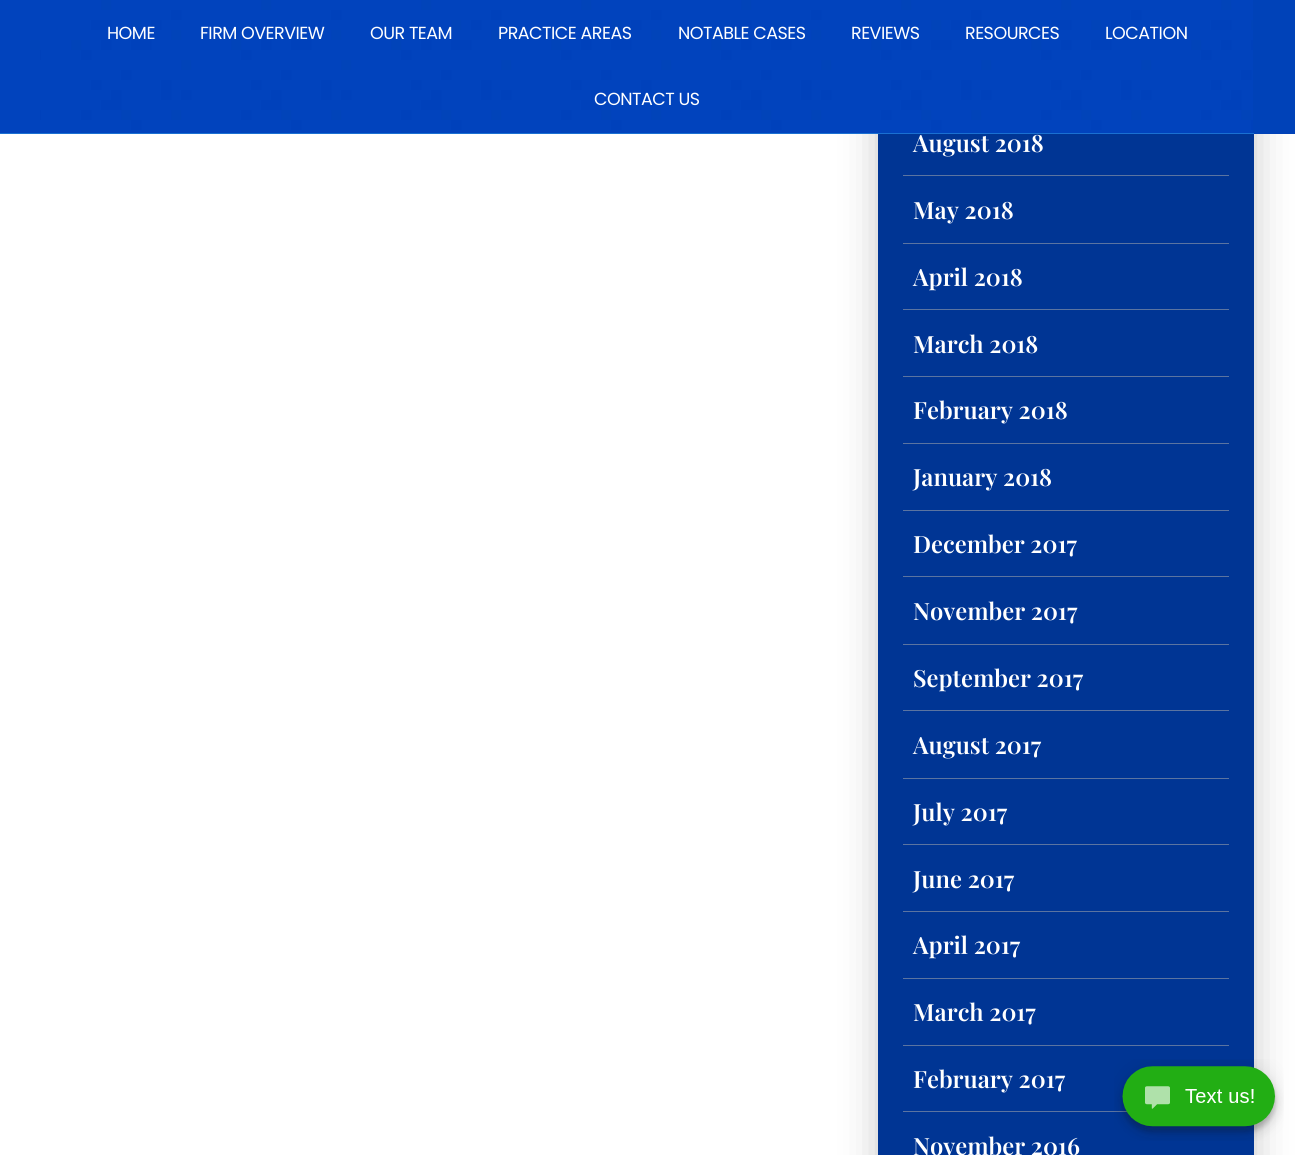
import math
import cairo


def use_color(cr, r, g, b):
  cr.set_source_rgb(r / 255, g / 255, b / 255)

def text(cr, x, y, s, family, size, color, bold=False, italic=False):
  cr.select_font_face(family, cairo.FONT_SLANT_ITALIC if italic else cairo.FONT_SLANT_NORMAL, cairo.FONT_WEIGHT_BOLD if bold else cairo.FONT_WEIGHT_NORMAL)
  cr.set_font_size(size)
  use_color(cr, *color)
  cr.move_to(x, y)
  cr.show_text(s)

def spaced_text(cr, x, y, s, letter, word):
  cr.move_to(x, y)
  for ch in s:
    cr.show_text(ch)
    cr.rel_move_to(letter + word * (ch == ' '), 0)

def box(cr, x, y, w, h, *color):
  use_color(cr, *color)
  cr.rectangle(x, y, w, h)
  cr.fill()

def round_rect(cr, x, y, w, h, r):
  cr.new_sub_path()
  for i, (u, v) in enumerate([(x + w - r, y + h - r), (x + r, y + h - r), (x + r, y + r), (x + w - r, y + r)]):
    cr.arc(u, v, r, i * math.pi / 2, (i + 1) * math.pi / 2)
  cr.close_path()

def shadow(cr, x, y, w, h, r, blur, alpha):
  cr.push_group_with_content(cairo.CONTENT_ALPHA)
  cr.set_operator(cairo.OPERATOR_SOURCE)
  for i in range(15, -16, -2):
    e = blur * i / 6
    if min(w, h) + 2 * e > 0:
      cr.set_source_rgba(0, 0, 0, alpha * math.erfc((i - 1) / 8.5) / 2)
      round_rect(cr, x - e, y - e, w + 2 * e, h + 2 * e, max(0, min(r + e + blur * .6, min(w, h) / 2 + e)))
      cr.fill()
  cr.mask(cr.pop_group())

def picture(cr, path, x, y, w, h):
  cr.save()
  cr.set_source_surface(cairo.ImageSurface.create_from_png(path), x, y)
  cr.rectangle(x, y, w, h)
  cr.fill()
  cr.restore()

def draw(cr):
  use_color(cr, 255, 255, 255)
  cr.paint()
  use_color(cr, 0, 0, 0)
  shadow(cr, 878, -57, 376, 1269, 0, 19, 0.22)
  box(cr, 1253, 0, 42, 134, 0, 66, 184)
  picture(cr, "img_01.png", 0, 0, 41, 133)
  box(cr, 0, 133, 1254, 1, 26, 112, 210)
  picture(cr, "img_02.png", 41, 0, 1212, 133)
  box(cr, 878, 134, 376, 1021, 0, 53, 148)
  box(cr, 903, 175, 326, 1, 91, 116, 161)
  box(cr, 903, 243, 326, 1, 91, 116, 161)
  box(cr, 903, 309, 326, 1, 91, 116, 161)
  box(cr, 903, 376, 326, 1, 91, 116, 161)
  box(cr, 903, 443, 326, 1, 91, 116, 161)
  box(cr, 903, 510, 326, 1, 91, 116, 161)
  box(cr, 903, 576, 326, 1, 91, 116, 161)
  box(cr, 903, 644, 326, 1, 91, 116, 161)
  box(cr, 903, 710, 326, 1, 91, 116, 161)
  box(cr, 903, 778, 326, 1, 91, 116, 161)
  box(cr, 903, 844, 326, 1, 91, 116, 161)
  box(cr, 903, 911, 326, 1, 91, 116, 161)
  box(cr, 903, 978, 326, 1, 91, 116, 161)
  box(cr, 903, 1045, 326, 1, 91, 116, 161)
  box(cr, 903, 1111, 224, 1, 91, 116, 161)
  picture(cr, "img_03.png", 1114, 1059, 170, 82)
  cr.select_font_face("Poppins")
  cr.set_font_size(17.5)
  use_color(cr, 255, 255, 255)
  spaced_text(cr, 107, 39, "HOME", -0.5, 0)
  spaced_text(cr, 200, 39, "FIRM OVERVIEW", -0.5, 0)
  spaced_text(cr, 370, 39, "OUR TEAM", -0.5, 0)
  spaced_text(cr, 498, 39, "PRACTICE AREAS", -0.5, 0)
  spaced_text(cr, 678, 39, "NOTABLE CASES", -0.5, 0)
  spaced_text(cr, 851, 39, "REVIEWS", -0.5, 0)
  spaced_text(cr, 965, 39, "RESOURCES", -0.5, 0)
  spaced_text(cr, 1105, 39, "LOCATION", -0.5, 0)
  spaced_text(cr, 594, 105, "CONTACT US", -0.5, 0)
  text(cr, 913, 152, "August 2018", "Playfair Display SemiBold", 23.75, (255, 255, 255))
  text(cr, 913, 219, "May 2018", "Playfair Display SemiBold", 23.75, (255, 255, 255))
  text(cr, 913, 286, "April 2018", "Playfair Display SemiBold", 23.75, (255, 255, 255))
  text(cr, 913, 353, "March 2018", "Playfair Display SemiBold", 23.75, (255, 255, 255))
  text(cr, 913, 419, "February 2018", "Playfair Display SemiBold", 23.75, (255, 255, 255))
  text(cr, 913, 486, "January 2018", "Playfair Display SemiBold", 23.75, (255, 255, 255))
  text(cr, 913, 553, "December 2017", "Playfair Display SemiBold", 23.75, (255, 255, 255))
  text(cr, 913, 620, "November 2017", "Playfair Display SemiBold", 23.75, (255, 255, 255))
  text(cr, 913, 687, "September 2017", "Playfair Display SemiBold", 23.75, (255, 255, 255))
  text(cr, 913, 754, "August 2017", "Playfair Display SemiBold", 23.75, (255, 255, 255))
  text(cr, 913, 821, "July 2017", "Playfair Display SemiBold", 23.75, (255, 255, 255))
  text(cr, 913, 888, "June 2017", "Playfair Display SemiBold", 23.75, (255, 255, 255))
  text(cr, 913, 954, "April 2017", "Playfair Display SemiBold", 23.75, (255, 255, 255))
  text(cr, 913, 1021, "March 2017", "Playfair Display SemiBold", 23.75, (255, 255, 255))
  text(cr, 913, 1088, "February 2017", "Playfair Display SemiBold", 23.75, (255, 255, 255))
  text(cr, 913, 1155, "November 2016", "Playfair Display SemiBold", 23.75, (255, 255, 255))


surface = cairo.ImageSurface(cairo.FORMAT_RGB24, 1295, 1155)
cr = cairo.Context(surface)
options = cairo.FontOptions()
options.set_hint_metrics(cairo.HINT_METRICS_OFF)
options.set_hint_style(cairo.HINT_STYLE_NONE)
cr.set_font_options(options)
cr.set_miter_limit(4)
draw(cr)
surface.write_to_png("out.png")
